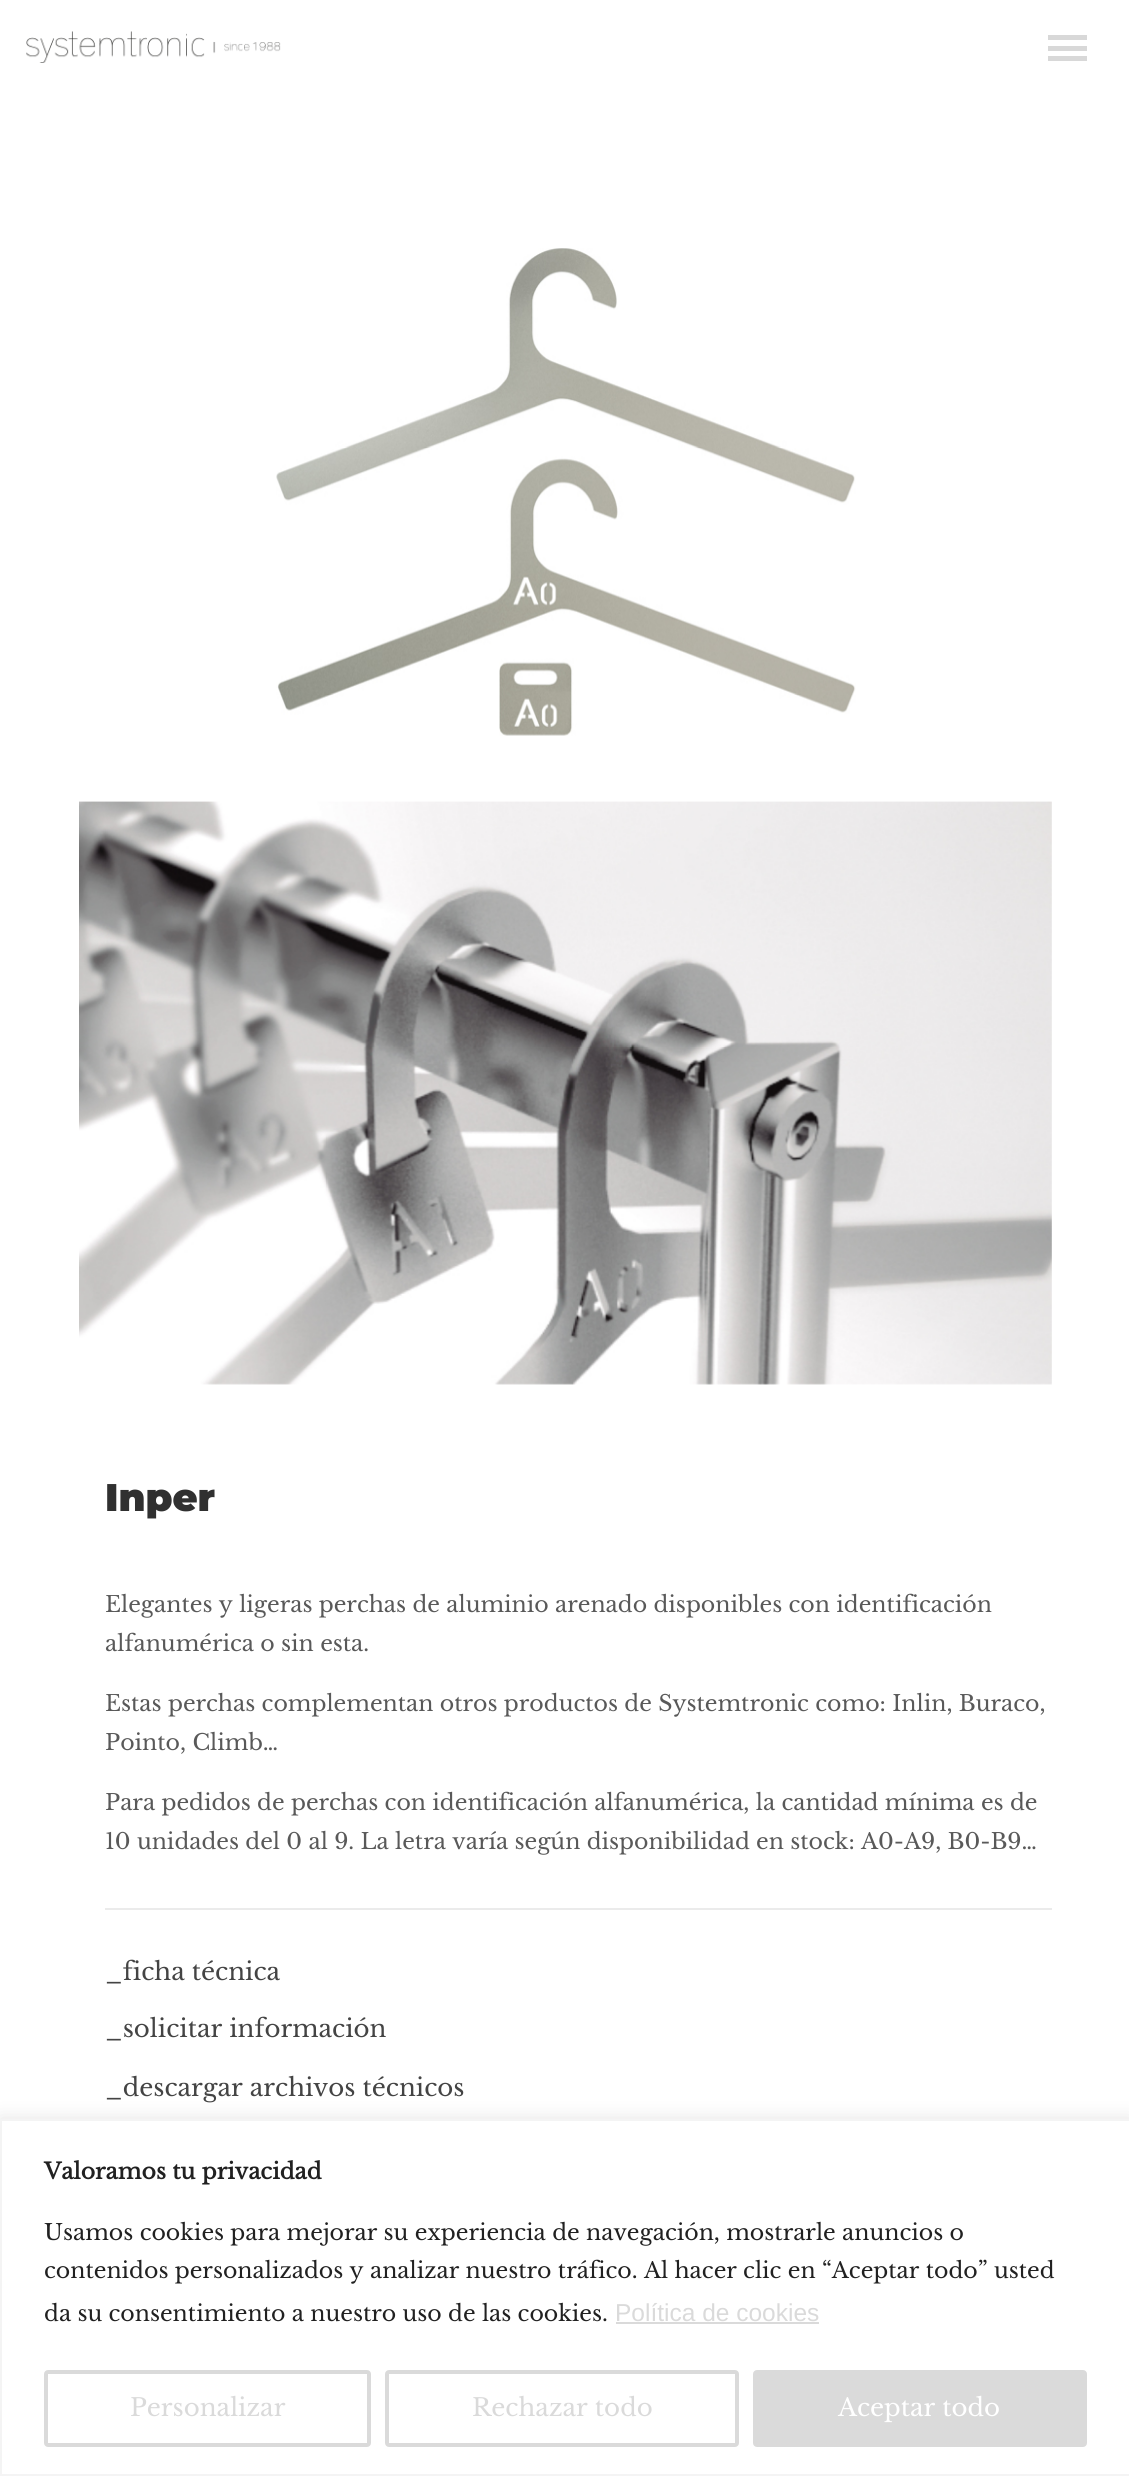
import math
import cairo


def use_color(cr, r, g, b):
  cr.set_source_rgb(r / 255, g / 255, b / 255)

def text(cr, x, y, s, family, size, color, bold=False, italic=False):
  cr.select_font_face(family, cairo.FONT_SLANT_ITALIC if italic else cairo.FONT_SLANT_NORMAL, cairo.FONT_WEIGHT_BOLD if bold else cairo.FONT_WEIGHT_NORMAL)
  cr.set_font_size(size)
  use_color(cr, *color)
  cr.move_to(x, y)
  cr.show_text(s)

def box(cr, x, y, w, h, *color):
  use_color(cr, *color)
  cr.rectangle(x, y, w, h)
  cr.fill()

def round_rect(cr, x, y, w, h, r):
  cr.new_sub_path()
  for i, (u, v) in enumerate([(x + w - r, y + h - r), (x + r, y + h - r), (x + r, y + r), (x + w - r, y + r)]):
    cr.arc(u, v, r, i * math.pi / 2, (i + 1) * math.pi / 2)
  cr.close_path()

def shadow(cr, x, y, w, h, r, blur, alpha):
  cr.push_group_with_content(cairo.CONTENT_ALPHA)
  cr.set_operator(cairo.OPERATOR_SOURCE)
  for i in range(15, -16, -2):
    e = blur * i / 6
    if min(w, h) + 2 * e > 0:
      cr.set_source_rgba(0, 0, 0, alpha * math.erfc((i - 1) / 8.5) / 2)
      round_rect(cr, x - e, y - e, w + 2 * e, h + 2 * e, max(0, min(r + e + blur * .6, min(w, h) / 2 + e)))
      cr.fill()
  cr.mask(cr.pop_group())

def picture(cr, path, x, y, w, h):
  cr.save()
  cr.set_source_surface(cairo.ImageSurface.create_from_png(path), x, y)
  cr.rectangle(x, y, w, h)
  cr.fill()
  cr.restore()

def draw(cr):
  use_color(cr, 255, 255, 255)
  cr.paint()
  picture(cr, "img_01.png", 26, 31, 255, 32)
  box(cr, 1048, 56, 39, 5, 216, 216, 216)
  box(cr, 1048, 46, 39, 5, 216, 216, 216)
  box(cr, 1048, 35, 39, 5, 216, 216, 216)
  picture(cr, "img_02.png", 276, 248, 580, 488)
  picture(cr, "img_03.png", 79, 801, 973, 584)
  box(cr, 105, 1908, 947, 2, 235, 235, 235)
  use_color(cr, 172, 171, 171)
  shadow(cr, 0, 2118, 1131, 357, 0, 9, 0.3)
  use_color(cr, 255, 255, 255)
  cr.rectangle(1, 2120, 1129, 355)
  cr.fill_preserve()
  use_color(cr, 244, 244, 244)
  cr.stroke()
  box(cr, 616, 2322, 203, 2, 218, 218, 218)
  round_rect(cr, 46, 2372, 323, 73, 2)
  cr.set_line_width(4)
  cr.stroke()
  round_rect(cr, 387, 2372, 350, 73, 2)
  cr.stroke()
  round_rect(cr, 755, 2372, 330, 73, 2)
  cr.fill_preserve()
  cr.stroke()
  text(cr, 105, 1511, "Inper", "Montserrat Black", 38.5, (48, 48, 48))
  text(cr, 105, 1612, "Elegantes y ligeras perchas de aluminio arenado disponibles con identificación", "Libre Baskerville", 22.05, (89, 89, 89))
  text(cr, 105, 1651, "alfanumérica o sin esta.", "Libre Baskerville", 22.05, (89, 89, 89))
  text(cr, 105, 1711, "Estas perchas complementan otros productos de Systemtronic como: Inlin, Buraco,", "Libre Baskerville", 22.05, (89, 89, 89))
  text(cr, 105, 1750, "Pointo, Climb…", "Libre Baskerville", 22.05, (89, 89, 89))
  text(cr, 105, 1810, "Para pedidos de perchas con identificación alfanumérica, la cantidad mínima es de", "Libre Baskerville", 22.05, (89, 89, 89))
  text(cr, 105, 1849, "10 unidades del 0 al 9. La letra varía según disponibilidad en stock: A0-A9, B0-B9…", "Libre Baskerville", 22.05, (89, 89, 89))
  text(cr, 105, 1980, "_ficha técnica", "Libre Baskerville", 24.5, (68, 68, 68))
  text(cr, 105, 2037, "_solicitar información", "Libre Baskerville", 24.5, (68, 68, 68))
  text(cr, 105, 2096, "_descargar archivos técnicos", "Libre Baskerville", 24.5, (68, 68, 68))
  text(cr, 44, 2179, "Valoramos tu privacidad", "Libre Baskerville", 22.05, (33, 33, 33), bold=True)
  text(cr, 44, 2240, "Usamos cookies para mejorar su experiencia de navegación, mostrarle anuncios o", "Libre Baskerville", 22.05, (33, 33, 33))
  text(cr, 44, 2278, "contenidos personalizados y analizar nuestro tráfico. Al hacer clic en “Aceptar todo” usted", "Libre Baskerville", 22.05, (33, 33, 33))
  text(cr, 44, 2321, "da su consentimiento a nuestro uso de las cookies.", "Libre Baskerville", 22.05, (33, 33, 33))
  text(cr, 615, 2321, "Política de cookies", "Liberation Sans", 24.5, (218, 218, 218))
  text(cr, 130, 2416, "Personalizar", "Libre Baskerville", 24.5, (218, 218, 218))
  text(cr, 472, 2416, "Rechazar todo", "Libre Baskerville", 24.5, (218, 218, 218))
  text(cr, 838, 2416, "Aceptar todo", "Libre Baskerville", 24.5, (255, 255, 255))


surface = cairo.ImageSurface(cairo.FORMAT_RGB24, 1129, 2476)
cr = cairo.Context(surface)
options = cairo.FontOptions()
options.set_hint_metrics(cairo.HINT_METRICS_OFF)
options.set_hint_style(cairo.HINT_STYLE_NONE)
cr.set_font_options(options)
cr.set_miter_limit(4)
draw(cr)
surface.write_to_png("out.png")
